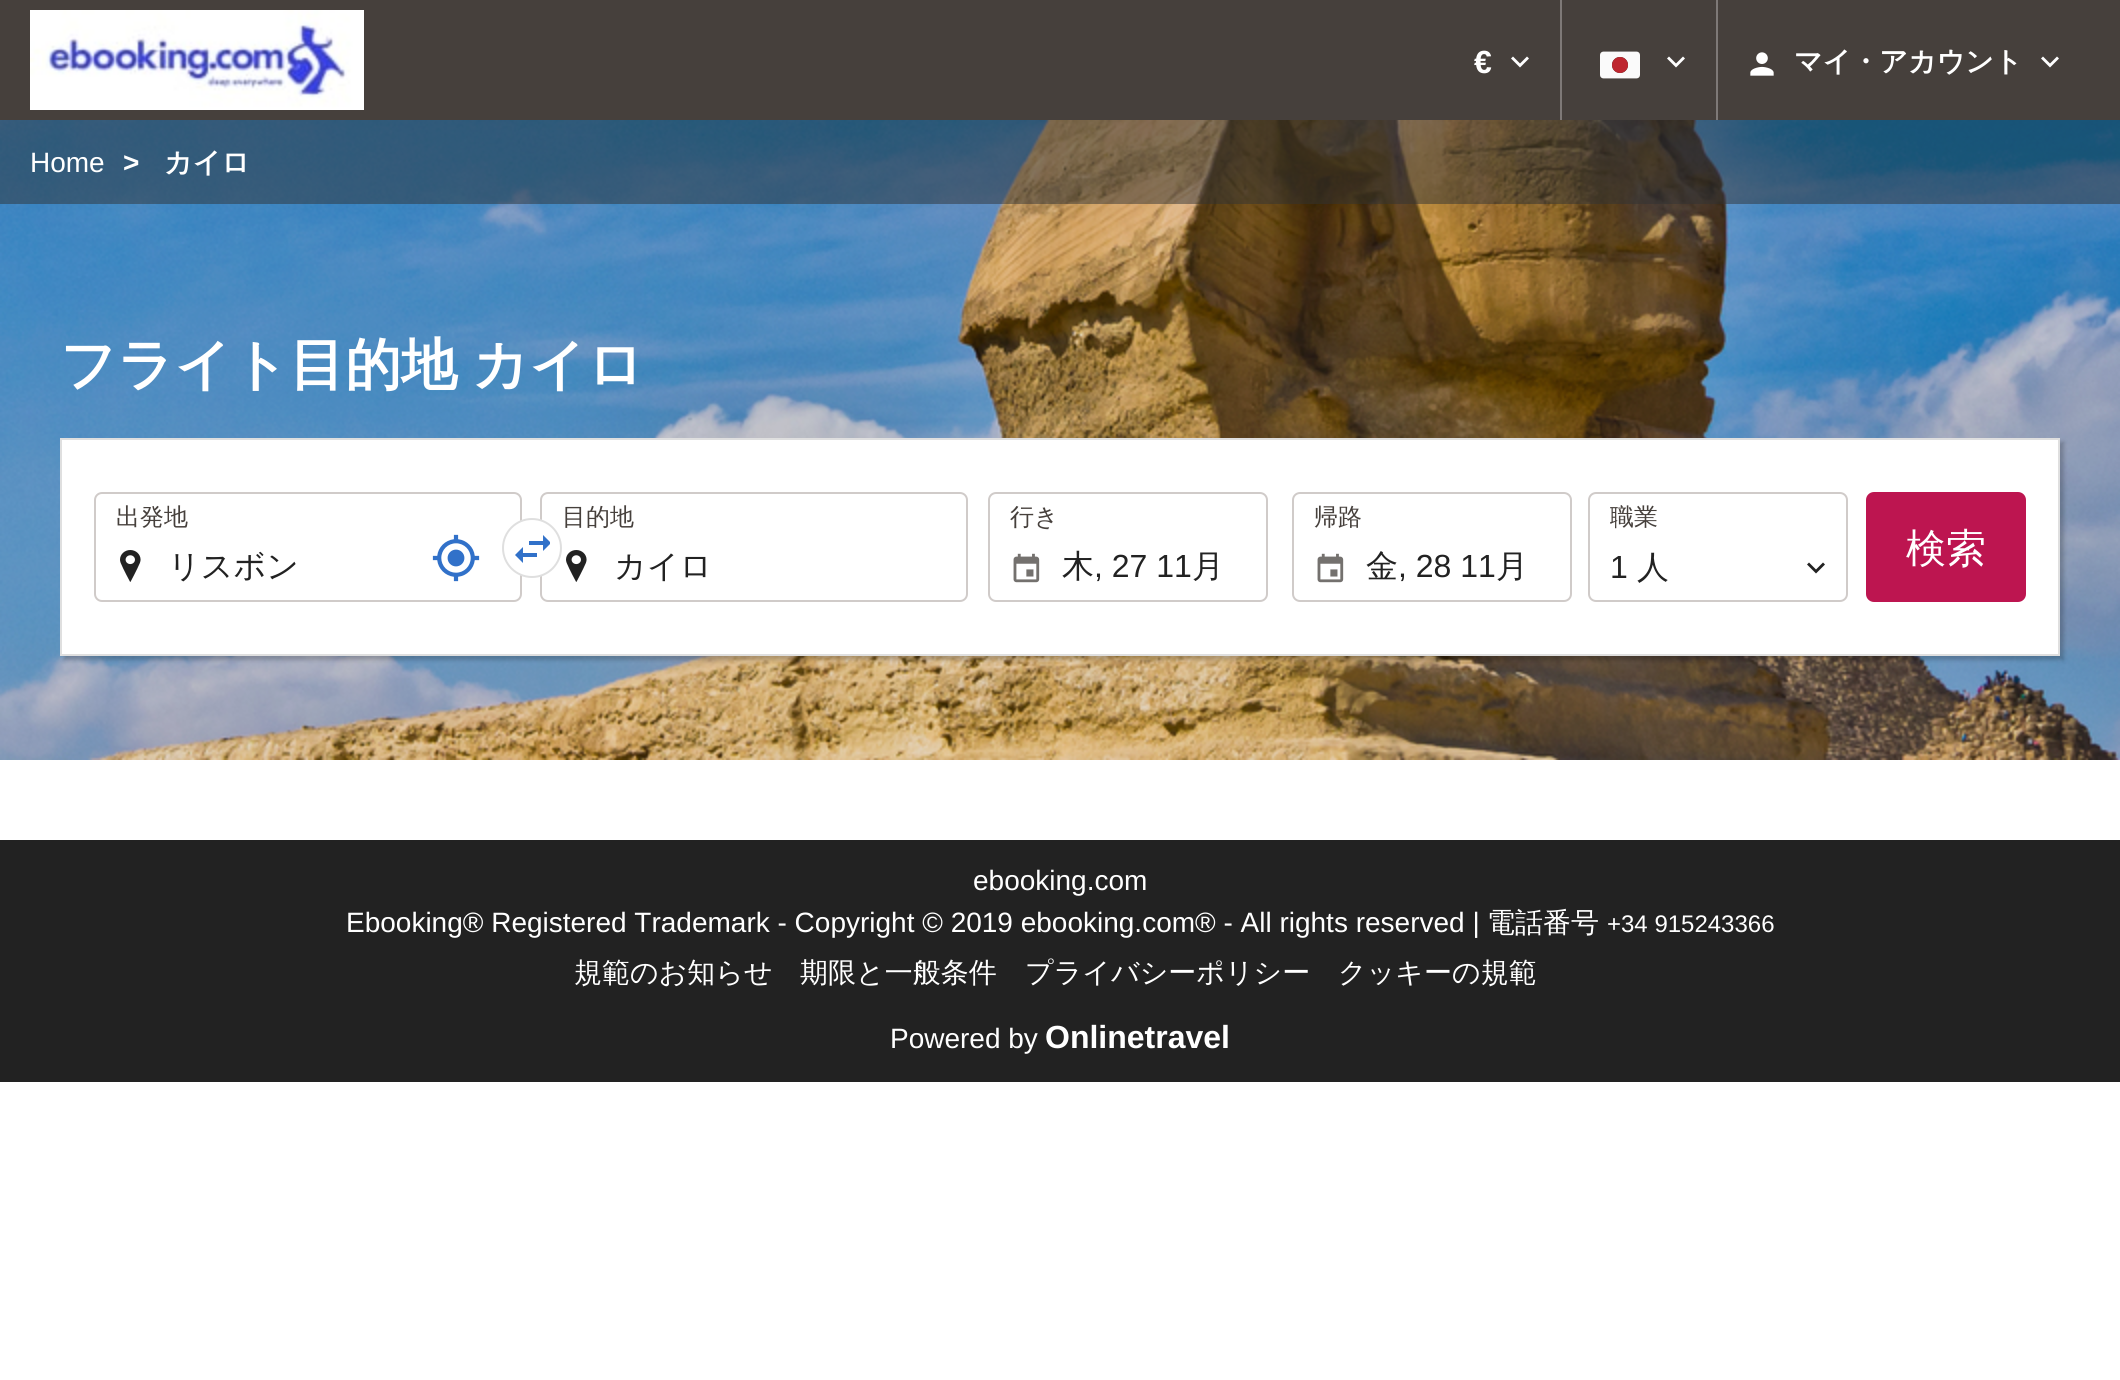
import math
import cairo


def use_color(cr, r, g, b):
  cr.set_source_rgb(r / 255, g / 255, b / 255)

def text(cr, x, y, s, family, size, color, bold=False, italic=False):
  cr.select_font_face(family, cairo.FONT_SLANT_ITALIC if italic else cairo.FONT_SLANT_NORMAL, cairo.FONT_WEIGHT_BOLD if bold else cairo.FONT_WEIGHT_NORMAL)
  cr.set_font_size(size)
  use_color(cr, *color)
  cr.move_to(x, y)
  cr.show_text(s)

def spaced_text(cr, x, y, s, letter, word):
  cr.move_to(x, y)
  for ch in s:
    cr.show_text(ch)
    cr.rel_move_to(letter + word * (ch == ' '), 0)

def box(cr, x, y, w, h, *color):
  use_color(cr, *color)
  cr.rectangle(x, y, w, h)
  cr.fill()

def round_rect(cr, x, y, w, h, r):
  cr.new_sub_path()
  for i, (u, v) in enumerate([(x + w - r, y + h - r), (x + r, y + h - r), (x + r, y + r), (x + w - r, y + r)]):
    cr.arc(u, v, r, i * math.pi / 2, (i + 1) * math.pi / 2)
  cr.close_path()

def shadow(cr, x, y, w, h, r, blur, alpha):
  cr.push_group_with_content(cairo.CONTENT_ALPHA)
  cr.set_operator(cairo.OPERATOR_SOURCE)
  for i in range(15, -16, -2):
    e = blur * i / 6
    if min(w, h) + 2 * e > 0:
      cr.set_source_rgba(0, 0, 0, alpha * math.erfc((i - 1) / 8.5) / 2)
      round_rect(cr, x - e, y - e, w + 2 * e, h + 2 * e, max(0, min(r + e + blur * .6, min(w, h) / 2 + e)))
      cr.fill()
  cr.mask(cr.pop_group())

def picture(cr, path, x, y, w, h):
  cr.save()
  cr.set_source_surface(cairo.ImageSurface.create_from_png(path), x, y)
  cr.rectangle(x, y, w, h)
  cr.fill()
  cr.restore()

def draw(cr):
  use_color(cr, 255, 255, 255)
  cr.paint()
  box(cr, 0, 0, 2120, 120, 70, 64, 60)
  picture(cr, "img_01.png", 30, 10, 334, 100)
  box(cr, 1560, 0, 2, 120, 126, 121, 119)
  use_color(cr, 255, 255, 255)
  cr.set_fill_rule(cairo.FILL_RULE_EVEN_ODD)
  cr.new_path()
  cr.move_to(1513, 56.5)
  cr.line_to(1520, 63.5)
  cr.line_to(1527, 56.5)
  cr.line_to(1529, 58.5)
  cr.line_to(1520, 67.5)
  cr.line_to(1511, 58.5)
  cr.close_path()
  cr.fill()
  box(cr, 1716, 0, 2, 120, 126, 121, 119)
  picture(cr, "img_02.png", 1600, 51, 40, 28)
  use_color(cr, 255, 255, 255)
  cr.new_path()
  cr.move_to(1669, 56.5)
  cr.line_to(1676, 63.5)
  cr.line_to(1683, 56.5)
  cr.line_to(1685, 58.5)
  cr.line_to(1676, 67.5)
  cr.line_to(1667, 58.5)
  cr.close_path()
  cr.fill()
  picture(cr, "img_03.png", 1750, 52, 24, 24)
  cr.new_path()
  cr.move_to(2043, 56.5)
  cr.line_to(2050, 63.5)
  cr.line_to(2057, 56.5)
  cr.line_to(2059, 58.5)
  cr.line_to(2050, 67.5)
  cr.line_to(2041, 58.5)
  cr.close_path()
  cr.fill()
  picture(cr, "img_04.png", 0, 120, 2120, 640)
  cr.set_source_rgba(0.188, 0.196, 0.208, 0.5)
  cr.rectangle(0, 120, 2120, 84)
  cr.fill()
  use_color(cr, 0, 0, 0)
  shadow(cr, 64, 442, 2000, 218, 0, 2, 0.2)
  use_color(cr, 255, 255, 255)
  cr.rectangle(61, 439, 1998, 216)
  cr.fill_preserve()
  use_color(cr, 223, 223, 223)
  cr.stroke()
  picture(cr, "img_05.png", 120, 550, 21, 32)
  round_rect(cr, 95, 493, 426, 108, 7)
  use_color(cr, 208, 203, 201)
  cr.stroke()
  picture(cr, "img_06.png", 432, 534, 48, 48)
  picture(cr, "img_05.png", 566, 550, 21, 32)
  round_rect(cr, 541, 493, 426, 108, 7)
  cr.stroke()
  use_color(cr, 255, 255, 255)
  cr.arc(532, 548, 29, 0, 2 * math.pi)
  cr.fill_preserve()
  use_color(cr, 223, 223, 223)
  cr.stroke()
  picture(cr, "img_07.png", 515, 535, 35, 28)
  picture(cr, "img_08.png", 1013, 553, 27, 30)
  round_rect(cr, 989, 493, 278, 108, 7)
  use_color(cr, 208, 203, 201)
  cr.stroke()
  picture(cr, "img_08.png", 1317, 553, 27, 30)
  round_rect(cr, 1293, 493, 278, 108, 7)
  cr.stroke()
  round_rect(cr, 1589, 493, 258, 108, 7)
  cr.stroke()
  use_color(cr, 34, 34, 34)
  cr.new_path()
  cr.move_to(1809, 562.5)
  cr.line_to(1816, 569.5)
  cr.line_to(1823, 562.5)
  cr.line_to(1825, 564.5)
  cr.line_to(1816, 573.5)
  cr.line_to(1807, 564.5)
  cr.close_path()
  cr.fill()
  use_color(cr, 189, 21, 80)
  round_rect(cr, 1866, 492, 160, 110, 8)
  cr.fill()
  box(cr, 0, 840, 2120, 242, 34, 34, 34)
  text(cr, 1474, 73, "€", "Liberation Sans", 32, (255, 255, 255), bold=True)
  text(cr, 1794, 71, "マイ・アカウント", "WenQuanYi Zen Hei", 28, (255, 255, 255), bold=True)
  text(cr, 30, 172, "Home", "Liberation Sans", 28, (255, 255, 255))
  text(cr, 123, 172, ">", "Liberation Sans", 28, (255, 255, 255), bold=True)
  text(cr, 164, 172, "カイロ", "WenQuanYi Zen Hei", 28, (255, 255, 255), bold=True)
  cr.set_font_size(56)
  spaced_text(cr, 60, 384, "フライト目的地 カイロ", 0, -2)
  text(cr, 116, 525, "出発地", "WenQuanYi Zen Hei Medium", 24, (70, 64, 60))
  text(cr, 168, 577, "リスボン", "WenQuanYi Zen Hei Medium", 32, (34, 34, 34))
  text(cr, 562, 525, "目的地", "WenQuanYi Zen Hei Medium", 24, (70, 64, 60))
  text(cr, 614, 577, "カイロ", "WenQuanYi Zen Hei Medium", 32, (34, 34, 34))
  text(cr, 1010, 525, "行き", "WenQuanYi Zen Hei Medium", 24, (70, 64, 60))
  text(cr, 1062, 577, "木", "WenQuanYi Zen Hei Medium", 32, (34, 34, 34))
  text(cr, 1094, 577, ", 27 11", "Liberation Sans", 32, (34, 34, 34))
  text(cr, 1192, 577, "月", "WenQuanYi Zen Hei Medium", 32, (34, 34, 34))
  text(cr, 1314, 525, "帰路", "WenQuanYi Zen Hei Medium", 24, (70, 64, 60))
  text(cr, 1366, 577, "金", "WenQuanYi Zen Hei Medium", 32, (34, 34, 34))
  text(cr, 1398, 577, ", 28 11", "Liberation Sans", 32, (34, 34, 34))
  text(cr, 1496, 577, "月", "WenQuanYi Zen Hei Medium", 32, (34, 34, 34))
  text(cr, 1610, 525, "職業", "WenQuanYi Zen Hei Medium", 24, (70, 64, 60))
  text(cr, 1610, 578, "1", "Liberation Sans", 32, (34, 34, 34))
  text(cr, 1637, 578, "人", "WenQuanYi Zen Hei Medium", 32, (34, 34, 34))
  text(cr, 1906, 562, "検索", "WenQuanYi Zen Hei Medium", 40, (255, 255, 255))
  text(cr, 973, 890, "ebooking.com", "Liberation Sans", 28, (255, 255, 255))
  text(cr, 346, 932, "Ebooking® Registered Trademark - Copyright © 2019 ebooking.com® - All rights reserved |", "Liberation Sans", 28, (255, 255, 255))
  text(cr, 1487, 932, "電話番号", "WenQuanYi Zen Hei Medium", 28, (255, 255, 255))
  text(cr, 1607, 932, "+34 915243366", "Liberation Sans", 24, (255, 255, 255))
  text(cr, 574, 982, "規範のお知らせ", "WenQuanYi Zen Hei Medium", 28, (255, 255, 255))
  text(cr, 800, 982, "期限と一般条件", "WenQuanYi Zen Hei Medium", 28, (255, 255, 255))
  text(cr, 1025, 982, "プライバシーポリシー", "WenQuanYi Zen Hei Medium", 28, (255, 255, 255))
  text(cr, 1338, 982, "クッキーの規範", "WenQuanYi Zen Hei Medium", 28, (255, 255, 255))
  text(cr, 890, 1048, "Powered by", "Liberation Sans", 28, (255, 255, 255))
  text(cr, 1045, 1048, "Onlinetravel", "Liberation Sans", 32, (255, 255, 255), bold=True)


surface = cairo.ImageSurface(cairo.FORMAT_RGB24, 2120, 1380)
cr = cairo.Context(surface)
options = cairo.FontOptions()
options.set_hint_metrics(cairo.HINT_METRICS_OFF)
options.set_hint_style(cairo.HINT_STYLE_NONE)
cr.set_font_options(options)
cr.set_miter_limit(4)
draw(cr)
surface.write_to_png("out.png")
